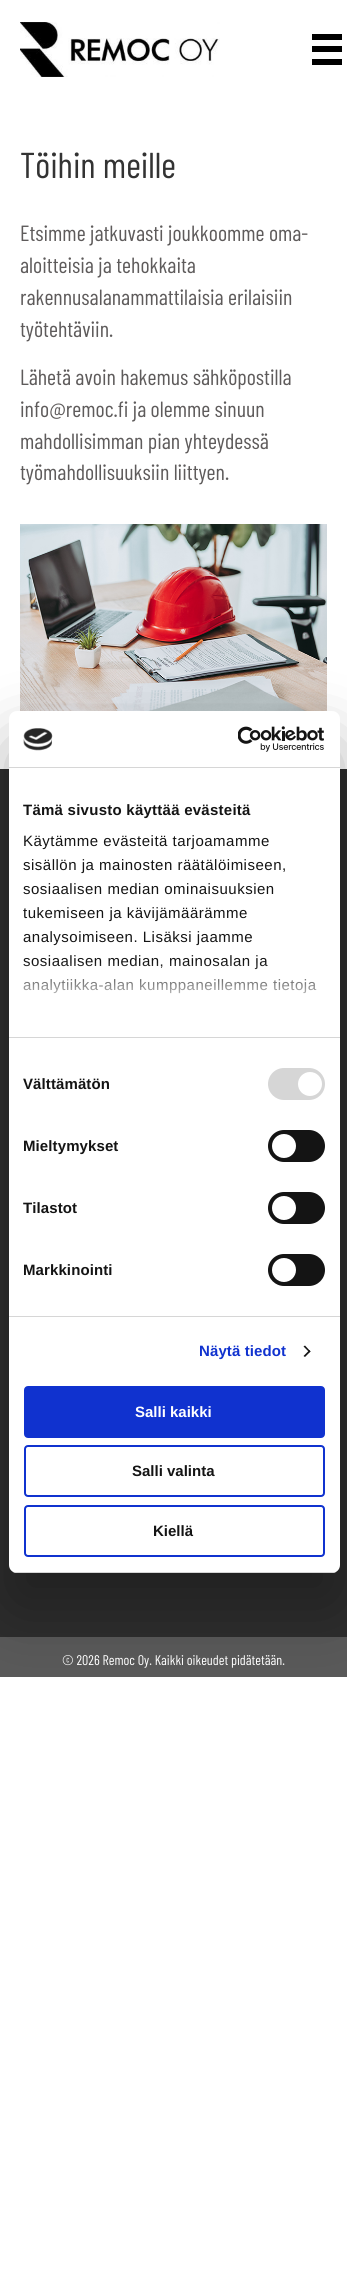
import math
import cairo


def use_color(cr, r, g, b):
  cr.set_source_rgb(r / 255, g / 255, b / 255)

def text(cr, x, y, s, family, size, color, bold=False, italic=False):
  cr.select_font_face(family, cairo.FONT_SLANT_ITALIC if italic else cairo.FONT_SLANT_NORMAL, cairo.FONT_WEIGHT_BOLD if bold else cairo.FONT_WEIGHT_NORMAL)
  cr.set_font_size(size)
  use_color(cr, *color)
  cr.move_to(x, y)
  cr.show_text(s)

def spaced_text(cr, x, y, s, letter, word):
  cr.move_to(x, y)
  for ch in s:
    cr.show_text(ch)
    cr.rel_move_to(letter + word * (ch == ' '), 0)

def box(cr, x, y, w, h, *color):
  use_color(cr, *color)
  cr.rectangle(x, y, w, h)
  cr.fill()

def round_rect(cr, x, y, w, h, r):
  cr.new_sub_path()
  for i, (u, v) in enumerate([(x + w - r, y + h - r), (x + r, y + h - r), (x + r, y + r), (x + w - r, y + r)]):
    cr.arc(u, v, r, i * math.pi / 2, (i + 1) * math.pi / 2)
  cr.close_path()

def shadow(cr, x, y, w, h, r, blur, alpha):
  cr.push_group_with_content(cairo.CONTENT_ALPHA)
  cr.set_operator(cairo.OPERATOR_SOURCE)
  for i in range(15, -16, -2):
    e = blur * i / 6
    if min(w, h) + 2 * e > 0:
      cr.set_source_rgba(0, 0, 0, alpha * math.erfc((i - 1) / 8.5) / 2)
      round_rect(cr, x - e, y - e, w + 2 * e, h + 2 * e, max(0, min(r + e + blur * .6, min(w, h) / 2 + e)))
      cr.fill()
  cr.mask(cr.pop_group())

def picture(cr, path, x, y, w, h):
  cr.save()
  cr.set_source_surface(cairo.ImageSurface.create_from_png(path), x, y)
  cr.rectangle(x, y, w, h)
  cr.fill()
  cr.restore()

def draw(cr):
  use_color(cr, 255, 255, 255)
  cr.paint()
  picture(cr, "img_01.png", 20, 22, 200, 55)
  box(cr, 312, 34, 30, 6, 0, 0, 0)
  box(cr, 312, 46, 30, 6, 0, 0, 0)
  box(cr, 312, 59, 30, 6, 0, 0, 0)
  picture(cr, "img_02.png", 20, 524, 307, 187)
  box(cr, 0, 769, 347, 868, 45, 45, 45)
  box(cr, 0, 1637, 347, 40, 89, 89, 89)
  use_color(cr, 0, 0, 0)
  shadow(cr, 9, 743, 331, 862, 8, 34, 0.3)
  use_color(cr, 255, 255, 255)
  round_rect(cr, 9, 711, 331, 862, 8)
  cr.fill()
  box(cr, 9, 767, 331, 1, 214, 214, 214)
  picture(cr, "img_03.png", 23, 728, 30, 23)
  picture(cr, "img_04.png", 238, 726, 86, 26)
  box(cr, 9, 1037, 331, 1, 214, 214, 214)
  box(cr, 9, 1316, 331, 1, 214, 214, 214)
  round_rect(cr, 268, 1068, 57, 32, 16)
  cr.fill()
  use_color(cr, 255, 255, 255)
  cr.arc(310, 1084, 12, 0, 2 * math.pi)
  cr.fill()
  use_color(cr, 20, 20, 20)
  round_rect(cr, 268, 1130, 57, 32, 16)
  cr.fill()
  use_color(cr, 255, 255, 255)
  cr.arc(284, 1146, 12, 0, 2 * math.pi)
  cr.fill()
  use_color(cr, 20, 20, 20)
  round_rect(cr, 268, 1192, 57, 32, 16)
  cr.fill()
  use_color(cr, 255, 255, 255)
  cr.arc(284, 1208, 12, 0, 2 * math.pi)
  cr.fill()
  use_color(cr, 20, 20, 20)
  round_rect(cr, 268, 1254, 57, 32, 16)
  cr.fill()
  use_color(cr, 255, 255, 255)
  cr.arc(284, 1270, 12, 0, 2 * math.pi)
  cr.fill()
  use_color(cr, 20, 20, 20)
  cr.new_path()
  cr.move_to(305, 1345.5)
  cr.line_to(310.5, 1351.5)
  cr.line_to(309.5, 1352.5)
  cr.line_to(303.5, 1346.5)
  cr.close_path()
  cr.fill()
  cr.new_path()
  cr.move_to(309.5, 1350)
  cr.line_to(310.5, 1351.5)
  cr.line_to(305, 1357)
  cr.line_to(303.5, 1356)
  cr.close_path()
  cr.fill()
  cr.save()
  round_rect(cr, 9, 711, 331, 862, 8)
  cr.clip()
  box(cr, 9, 1572, 331, 1, 214, 214, 214)
  cr.restore()
  use_color(cr, 16, 50, 207)
  round_rect(cr, 25, 1387, 299, 50, 3)
  cr.fill_preserve()
  cr.stroke()
  round_rect(cr, 25, 1446, 299, 50, 3)
  cr.stroke()
  round_rect(cr, 25, 1506, 299, 50, 3)
  cr.stroke()
  text(cr, 20, 178, "Töihin meille", "Barlow Condensed", 36, (51, 51, 51))
  text(cr, 20, 241, "Etsimme jatkuvasti joukkoomme oma-", "Barlow Condensed", 22, (94, 91, 91))
  text(cr, 20, 273, "aloitteisia ja tehokkaita", "Barlow Condensed", 22, (94, 91, 91))
  text(cr, 20, 305, "rakennusalanammattilaisia erilaisiin", "Barlow Condensed", 22, (94, 91, 91))
  text(cr, 20, 337, "työtehtäviin.", "Barlow Condensed", 22, (94, 91, 91))
  text(cr, 20, 385, "Lähetä avoin hakemus sähköpostilla", "Barlow Condensed", 22, (94, 91, 91))
  text(cr, 20, 417, "info@remoc.fi ja olemme sinuun", "Barlow Condensed", 22, (94, 91, 91))
  text(cr, 20, 449, "mahdollisimman pian yhteydessä", "Barlow Condensed", 22, (94, 91, 91))
  text(cr, 20, 480, "työmahdollisuuksiin liittyen.", "Barlow Condensed", 22, (94, 91, 91))
  text(cr, 62, 1665, "© 2026 Remoc Oy. Kaikki oikeudet pidätetään.", "Barlow Condensed", 14, (255, 255, 255))
  cr.select_font_face("Liberation Sans", cairo.FONT_SLANT_NORMAL, cairo.FONT_WEIGHT_BOLD)
  cr.set_font_size(15)
  use_color(cr, 20, 20, 20)
  spaced_text(cr, 23, 815, "Tämä sivusto käyttää evästeitä", 0.25, 0)
  cr.select_font_face("Liberation Sans")
  spaced_text(cr, 23, 846, "Käytämme evästeitä tarjoamamme", 0.5, 0)
  spaced_text(cr, 23, 870, "sisällön ja mainosten räätälöimiseen,", 0.5, 0)
  spaced_text(cr, 23, 894, "sosiaalisen median ominaisuuksien", 0.5, 0)
  spaced_text(cr, 23, 918, "tukemiseen ja kävijämäärämme", 0.5, 0)
  spaced_text(cr, 23, 942, "analysoimiseen. Lisäksi jaamme", 0.5, 0)
  spaced_text(cr, 23, 966, "sosiaalisen median, mainosalan ja", 0.5, 0)
  spaced_text(cr, 23, 990, "analytiikka-alan kumppaneillemme tietoja", 0.5, 0)
  gradient = cairo.LinearGradient(168, 1037, 168, 962)
  gradient.add_color_stop_rgba(0, 1, 1, 1, 1)
  gradient.add_color_stop_rgba(0.5, 1, 1, 1, 0.8)
  gradient.add_color_stop_rgba(1, 1, 1, 1, 0)
  cr.set_source(gradient)
  cr.rectangle(23, 963, 293, 31)
  cr.fill()
  cr.select_font_face("Liberation Sans", cairo.FONT_SLANT_NORMAL, cairo.FONT_WEIGHT_BOLD)
  use_color(cr, 20, 20, 20)
  spaced_text(cr, 23, 1089, "Välttämätön", 0.1, 0)
  spaced_text(cr, 23, 1151, "Mieltymykset", 0.1, 0)
  spaced_text(cr, 23, 1213, "Tilastot", 0.1, 0)
  spaced_text(cr, 23, 1275, "Markkinointi", 0.1, 0)
  use_color(cr, 16, 50, 207)
  spaced_text(cr, 199, 1356, "Näytä tiedot", 0.1, 0)
  text(cr, 135, 1417, "Salli kaikki", "Liberation Sans", 15, (255, 255, 255), bold=True)
  text(cr, 132, 1476, "Salli valinta", "Liberation Sans", 15, (20, 20, 20), bold=True)
  text(cr, 153, 1536, "Kiellä", "Liberation Sans", 15, (20, 20, 20), bold=True)


surface = cairo.ImageSurface(cairo.FORMAT_RGB24, 347, 2284)
cr = cairo.Context(surface)
options = cairo.FontOptions()
options.set_hint_metrics(cairo.HINT_METRICS_OFF)
options.set_hint_style(cairo.HINT_STYLE_NONE)
cr.set_font_options(options)
cr.set_miter_limit(4)
draw(cr)
surface.write_to_png("out.png")
